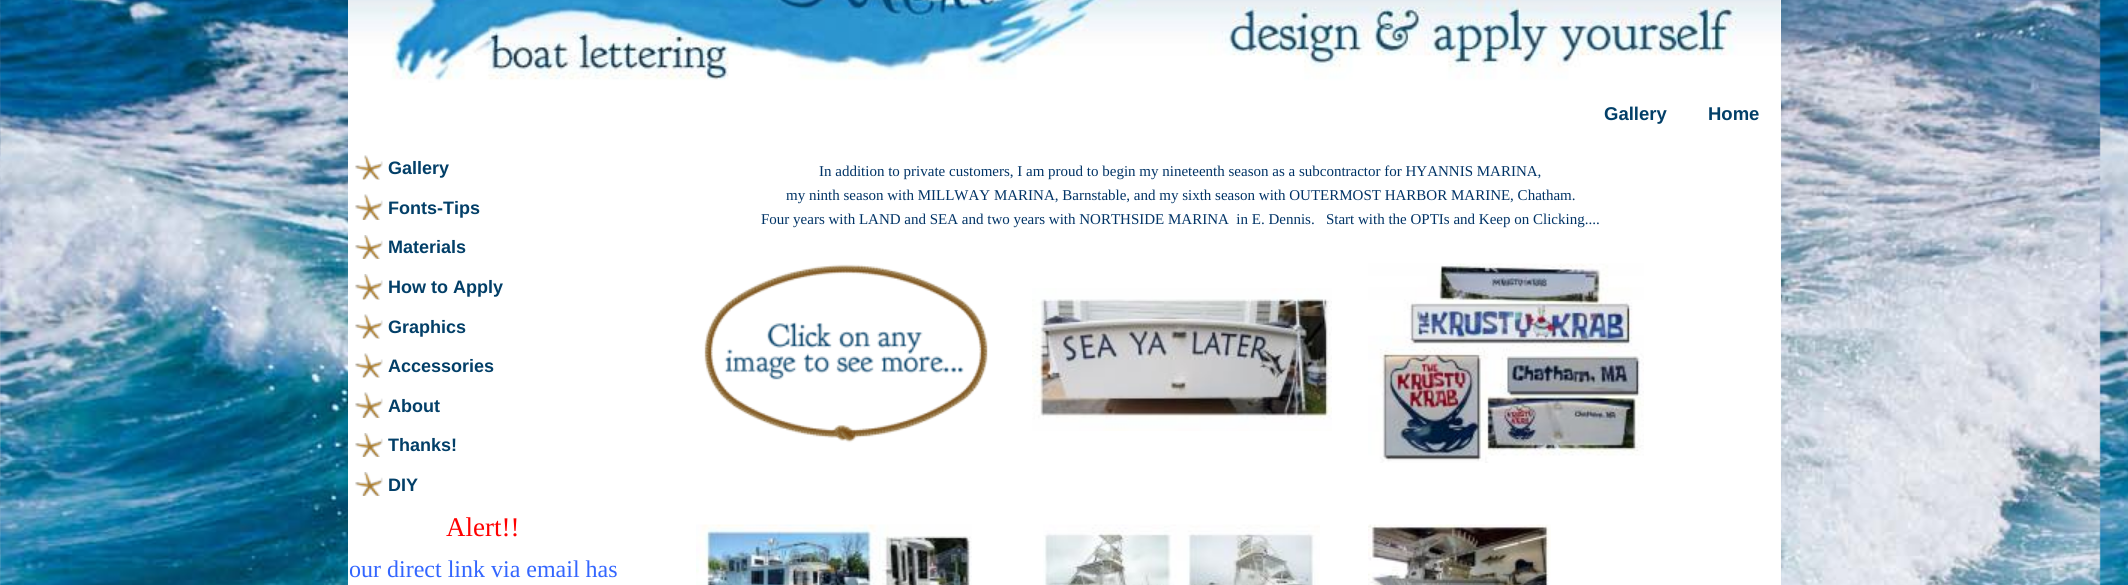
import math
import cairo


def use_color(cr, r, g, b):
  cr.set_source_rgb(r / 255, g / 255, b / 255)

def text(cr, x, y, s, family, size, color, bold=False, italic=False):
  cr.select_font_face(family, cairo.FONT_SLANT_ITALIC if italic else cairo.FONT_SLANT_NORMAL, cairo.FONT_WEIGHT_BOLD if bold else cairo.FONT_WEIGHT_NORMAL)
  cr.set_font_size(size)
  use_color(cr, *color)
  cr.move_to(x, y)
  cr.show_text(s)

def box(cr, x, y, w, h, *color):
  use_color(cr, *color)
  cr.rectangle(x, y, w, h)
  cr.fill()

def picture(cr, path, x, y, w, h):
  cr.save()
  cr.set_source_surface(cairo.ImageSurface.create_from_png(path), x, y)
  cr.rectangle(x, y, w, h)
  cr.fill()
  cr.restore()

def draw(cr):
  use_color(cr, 255, 255, 255)
  cr.paint()
  picture(cr, "img_01.png", 0, 0, 2128, 585)
  box(cr, 348, 0, 1433, 585, 255, 255, 255)
  picture(cr, "img_02.png", 348, 0, 1433, 83)
  picture(cr, "img_03.png", 355, 155, 28, 25)
  picture(cr, "img_04.png", 355, 194, 28, 26)
  picture(cr, "img_05.png", 355, 235, 28, 24)
  picture(cr, "img_06.png", 355, 274, 28, 26)
  picture(cr, "img_03.png", 355, 314, 28, 25)
  picture(cr, "img_07.png", 355, 353, 28, 25)
  picture(cr, "img_04.png", 355, 392, 28, 26)
  picture(cr, "img_05.png", 355, 433, 28, 24)
  picture(cr, "img_05.png", 355, 472, 28, 24)
  picture(cr, "img_08.png", 704, 264, 284, 179)
  picture(cr, "img_09.png", 1032, 288, 300, 143)
  picture(cr, "img_10.png", 1368, 263, 276, 200)
  picture(cr, "img_11.png", 696, 524, 276, 61)
  picture(cr, "img_12.png", 1043, 524, 277, 61)
  picture(cr, "img_13.png", 1368, 524, 183, 61)
  text(cr, 1604, 120, "Gallery", "Liberation Sans", 18.5, (2, 63, 104), bold=True)
  text(cr, 1708, 120, "Home", "Liberation Sans", 18.5, (2, 63, 104), bold=True)
  text(cr, 388, 174, "Gallery", "Liberation Sans", 18, (2, 63, 104), bold=True)
  text(cr, 388, 214, "Fonts-Tips", "Liberation Sans", 18, (2, 63, 104), bold=True)
  text(cr, 388, 253, "Materials", "Liberation Sans", 18, (2, 63, 104), bold=True)
  text(cr, 388, 293, "How to Apply", "Liberation Sans", 18, (2, 63, 104), bold=True)
  text(cr, 388, 333, "Graphics", "Liberation Sans", 18, (2, 63, 104), bold=True)
  text(cr, 388, 372, "Accessories", "Liberation Sans", 18, (2, 63, 104), bold=True)
  text(cr, 388, 412, "About", "Liberation Sans", 18, (2, 63, 104), bold=True)
  text(cr, 388, 451, "Thanks!", "Liberation Sans", 18, (2, 63, 104), bold=True)
  text(cr, 388, 491, "DIY", "Liberation Sans", 18, (2, 63, 104), bold=True)
  text(cr, 446, 536, "Alert!!", "Liberation Serif", 27, (255, 0, 0))
  text(cr, 349, 577, "our direct link via email has", "Liberation Serif", 24, (51, 102, 255))
  text(cr, 819, 176, "In addition to private customers, I am proud to begin my nineteenth season as a subcontractor for HYANNIS MARINA,", "Liberation Serif", 15, (0, 51, 102))
  text(cr, 786, 200, "my ninth season with MILLWAY MARINA, Barnstable, and my sixth season with OUTERMOST HARBOR MARINE, Chatham.", "Liberation Serif", 15, (0, 51, 102))
  text(cr, 761, 224, "Four years with LAND and SEA and two years with NORTHSIDE MARINA  in E. Dennis.   Start with the OPTIs and Keep on Clicking....", "Liberation Serif", 15, (0, 51, 102))


surface = cairo.ImageSurface(cairo.FORMAT_RGB24, 2128, 585)
cr = cairo.Context(surface)
options = cairo.FontOptions()
options.set_hint_metrics(cairo.HINT_METRICS_OFF)
options.set_hint_style(cairo.HINT_STYLE_NONE)
cr.set_font_options(options)
cr.set_miter_limit(4)
draw(cr)
surface.write_to_png("out.png")
